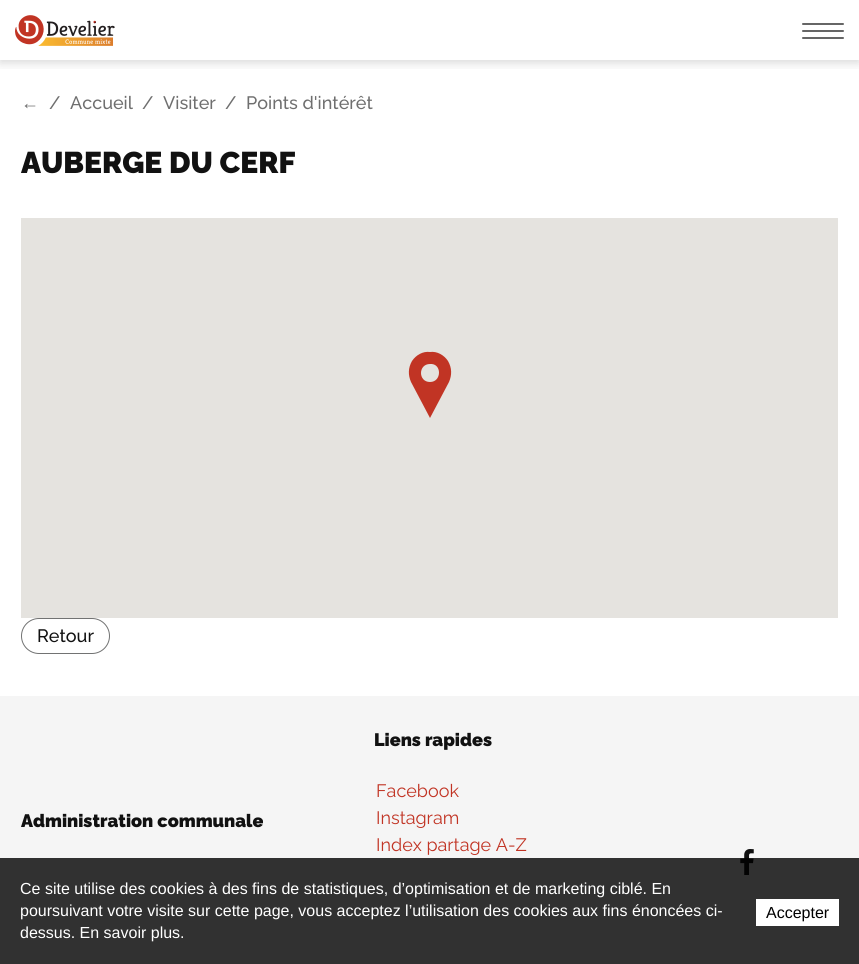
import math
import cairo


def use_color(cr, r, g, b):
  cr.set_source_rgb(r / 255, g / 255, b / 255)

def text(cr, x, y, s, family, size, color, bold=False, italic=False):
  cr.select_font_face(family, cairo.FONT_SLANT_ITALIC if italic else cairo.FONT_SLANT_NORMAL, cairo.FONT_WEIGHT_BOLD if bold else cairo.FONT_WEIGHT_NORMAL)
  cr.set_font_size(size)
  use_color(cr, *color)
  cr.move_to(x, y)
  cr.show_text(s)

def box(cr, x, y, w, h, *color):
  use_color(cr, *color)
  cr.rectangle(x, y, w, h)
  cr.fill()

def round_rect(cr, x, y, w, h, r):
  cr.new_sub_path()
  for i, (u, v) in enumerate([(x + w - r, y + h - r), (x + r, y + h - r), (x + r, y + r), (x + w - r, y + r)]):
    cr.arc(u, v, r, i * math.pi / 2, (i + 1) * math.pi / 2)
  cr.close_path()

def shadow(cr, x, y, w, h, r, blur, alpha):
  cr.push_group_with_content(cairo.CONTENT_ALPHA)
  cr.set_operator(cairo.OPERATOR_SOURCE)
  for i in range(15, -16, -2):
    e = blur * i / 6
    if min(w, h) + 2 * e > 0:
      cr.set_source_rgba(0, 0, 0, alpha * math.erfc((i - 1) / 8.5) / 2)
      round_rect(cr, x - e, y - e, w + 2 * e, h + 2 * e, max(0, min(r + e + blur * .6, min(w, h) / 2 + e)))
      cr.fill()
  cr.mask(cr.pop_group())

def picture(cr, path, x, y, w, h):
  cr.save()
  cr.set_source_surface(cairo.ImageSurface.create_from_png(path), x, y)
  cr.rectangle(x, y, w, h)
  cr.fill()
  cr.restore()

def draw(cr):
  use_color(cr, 255, 255, 255)
  cr.paint()
  cr.save()
  cr.rectangle(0, 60, 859, 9)
  cr.clip()
  use_color(cr, 0, 0, 0)
  shadow(cr, 0, 3, 859, 60, 0, 5, 0.15)
  cr.restore()
  picture(cr, "img_01.png", 15, 15, 100, 31)
  use_color(cr, 102, 102, 102)
  round_rect(cr, 802, 23, 42, 2, 1)
  cr.fill()
  round_rect(cr, 802, 30, 42, 2, 1)
  cr.fill()
  round_rect(cr, 802, 37, 42, 2, 1)
  cr.fill()
  box(cr, 21, 218, 817, 400, 229, 227, 223)
  use_color(cr, 193, 52, 36)
  cr.new_path()
  cr.move_to(430, 352)
  cr.curve_to(423, 351, 416, 355, 412, 361)
  cr.curve_to(408, 368, 408, 375, 411, 382)
  cr.line_to(430, 418)
  cr.line_to(449, 382)
  cr.curve_to(452, 375, 452, 368, 448, 361)
  cr.curve_to(444, 355, 437, 351, 430, 352)
  cr.close_path()
  cr.move_to(430, 382)
  cr.curve_to(418, 382, 418, 364, 430, 364)
  cr.curve_to(442, 363, 442, 382, 430, 382)
  cr.close_path()
  cr.fill()
  round_rect(cr, 21.5, 618.5, 88, 35, 17.5)
  use_color(cr, 114, 115, 115)
  cr.set_line_width(1)
  cr.stroke()
  box(cr, 0, 696, 859, 268, 245, 245, 245)
  picture(cr, "img_02.png", 740, 849, 14, 26)
  cr.set_source_rgba(0, 0, 0, 0.8)
  cr.rectangle(0, 858, 859, 106)
  cr.fill()
  box(cr, 756, 899, 83, 27, 255, 255, 255)
  text(cr, 21, 109, "←", "Liberation Serif", 18, (111, 111, 111))
  text(cr, 49, 109, "/", "Raleway Medium", 18, (111, 111, 111))
  text(cr, 70, 109, "Accueil", "Raleway Medium", 18, (111, 111, 111))
  text(cr, 142, 109, "/", "Raleway Medium", 18, (111, 111, 111))
  text(cr, 163, 109, "Visiter", "Raleway Medium", 18, (111, 111, 111))
  text(cr, 225, 109, "/", "Raleway Medium", 18, (111, 111, 111))
  text(cr, 246, 109, "Points d'intérêt", "Raleway Medium", 18, (111, 111, 111))
  text(cr, 21, 173, "AUBERGE DU CERF", "Raleway Black", 30, (17, 17, 17))
  text(cr, 37, 642, "Retour", "Raleway Medium", 18, (17, 17, 17))
  text(cr, 21, 827, "Administration communale", "Raleway Black", 18, (17, 17, 17))
  text(cr, 374, 746, "Liens rapides", "Raleway Black", 18, (17, 17, 17))
  text(cr, 376, 797, "Facebook", "Raleway", 18, (193, 52, 36))
  text(cr, 376, 824, "Instagram", "Raleway", 18, (193, 52, 36))
  text(cr, 376, 851, "Index partage A-Z", "Raleway", 18, (193, 52, 36))
  text(cr, 20, 894, "Ce site utilise des cookies à des fins de statistiques, d’optimisation et de marketing ciblé. En", "Liberation Sans", 16, (255, 255, 255))
  text(cr, 20, 916, "poursuivant votre visite sur cette page, vous acceptez l’utilisation des cookies aux fins énoncées ci-", "Liberation Sans", 16, (255, 255, 255))
  text(cr, 20, 938, "dessus. En savoir plus.", "Liberation Sans", 16, (255, 255, 255))
  text(cr, 766, 918, "Accepter", "Liberation Sans", 16, (0, 0, 0))


surface = cairo.ImageSurface(cairo.FORMAT_RGB24, 859, 964)
cr = cairo.Context(surface)
options = cairo.FontOptions()
options.set_hint_metrics(cairo.HINT_METRICS_OFF)
options.set_hint_style(cairo.HINT_STYLE_NONE)
cr.set_font_options(options)
cr.set_miter_limit(4)
draw(cr)
surface.write_to_png("out.png")
